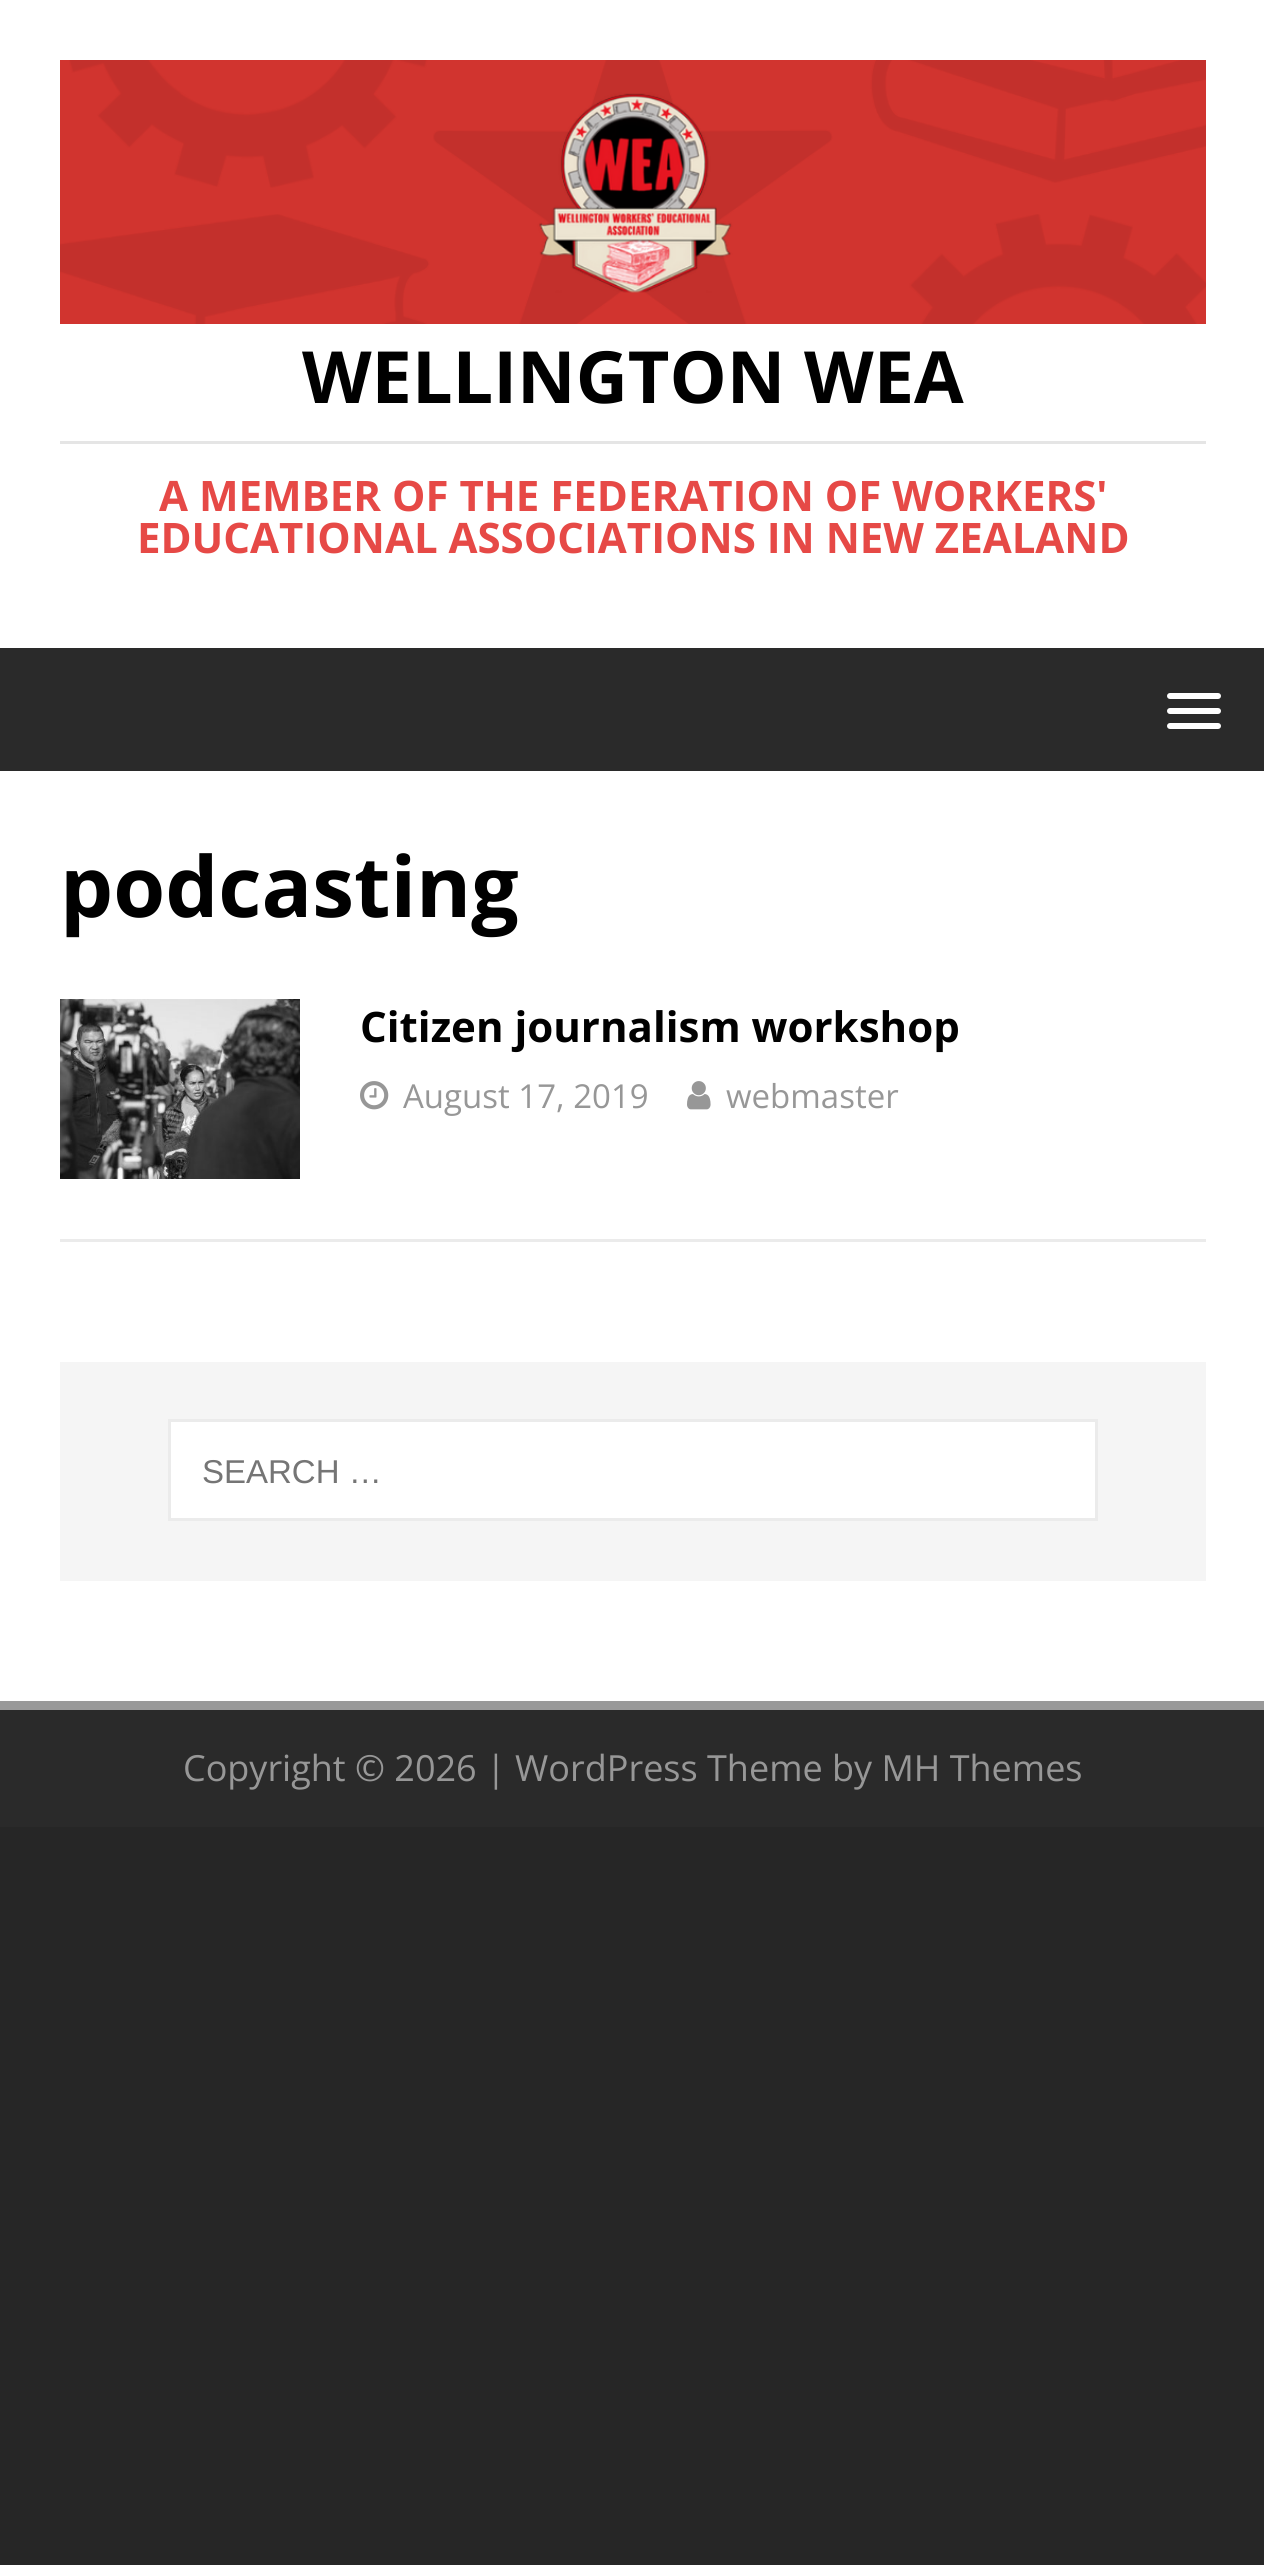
import math
import cairo


def use_color(cr, r, g, b):
  cr.set_source_rgb(r / 255, g / 255, b / 255)

def text(cr, x, y, s, family, size, color, bold=False, italic=False):
  cr.select_font_face(family, cairo.FONT_SLANT_ITALIC if italic else cairo.FONT_SLANT_NORMAL, cairo.FONT_WEIGHT_BOLD if bold else cairo.FONT_WEIGHT_NORMAL)
  cr.set_font_size(size)
  use_color(cr, *color)
  cr.move_to(x, y)
  cr.show_text(s)

def box(cr, x, y, w, h, *color):
  use_color(cr, *color)
  cr.rectangle(x, y, w, h)
  cr.fill()

def round_rect(cr, x, y, w, h, r):
  cr.new_sub_path()
  for i, (u, v) in enumerate([(x + w - r, y + h - r), (x + r, y + h - r), (x + r, y + r), (x + w - r, y + r)]):
    cr.arc(u, v, r, i * math.pi / 2, (i + 1) * math.pi / 2)
  cr.close_path()

def picture(cr, path, x, y, w, h):
  cr.save()
  cr.set_source_surface(cairo.ImageSurface.create_from_png(path), x, y)
  cr.rectangle(x, y, w, h)
  cr.fill()
  cr.restore()

def draw(cr):
  use_color(cr, 38, 38, 38)
  cr.paint()
  box(cr, 0, 0, 1264, 648, 255, 255, 255)
  picture(cr, "img_01.png", 60, 60, 1146, 264)
  box(cr, 60, 441, 1146, 3, 229, 229, 229)
  box(cr, 0, 648, 1264, 123, 42, 42, 42)
  use_color(cr, 255, 255, 255)
  round_rect(cr, 1167, 693, 54, 6, 3)
  cr.fill()
  round_rect(cr, 1167, 708, 54, 6, 3)
  cr.fill()
  round_rect(cr, 1167, 723, 54, 6, 3)
  cr.fill()
  box(cr, 0, 771, 1264, 930, 255, 255, 255)
  box(cr, 60, 1239, 1146, 3, 235, 235, 235)
  picture(cr, "img_02.png", 60, 999, 240, 180)
  picture(cr, "img_03.png", 360, 1081, 29, 29)
  picture(cr, "img_04.png", 687, 1081, 24, 29)
  box(cr, 60, 1362, 1146, 219, 245, 245, 245)
  use_color(cr, 255, 255, 255)
  cr.rectangle(169.5, 1420.5, 927, 99)
  cr.fill_preserve()
  use_color(cr, 235, 235, 235)
  cr.set_line_width(3)
  cr.stroke()
  box(cr, 0, 1710, 1264, 117, 42, 42, 42)
  box(cr, 0, 1701, 1264, 9, 153, 153, 153)
  text(cr, 302, 403, "WELLINGTON WEA", "Open Sans", 72, (0, 0, 0), bold=True)
  text(cr, 159, 511, "A MEMBER OF THE FEDERATION OF WORKERS'", "Open Sans", 42, (230, 73, 70), bold=True)
  text(cr, 137, 553, "EDUCATIONAL ASSOCIATIONS IN NEW ZEALAND", "Open Sans", 42, (230, 73, 70), bold=True)
  text(cr, 60, 917, "podcasting", "Open Sans", 84, (0, 0, 0), bold=True)
  text(cr, 360, 1042, "Citizen journalism workshop", "Open Sans", 42, (0, 0, 0), bold=True)
  text(cr, 403, 1108, "August 17, 2019", "Open Sans", 33, (151, 151, 151))
  text(cr, 726, 1108, "webmaster", "Open Sans", 33, (151, 151, 151))
  text(cr, 202, 1483, "SEARCH …", "Liberation Sans", 33, (117, 117, 117))
  text(cr, 183, 1781, "Copyright © 2026 | WordPress Theme by MH Themes", "Open Sans", 36, (151, 151, 151))


surface = cairo.ImageSurface(cairo.FORMAT_RGB24, 1264, 2565)
cr = cairo.Context(surface)
options = cairo.FontOptions()
options.set_hint_metrics(cairo.HINT_METRICS_OFF)
options.set_hint_style(cairo.HINT_STYLE_NONE)
cr.set_font_options(options)
cr.set_miter_limit(4)
draw(cr)
surface.write_to_png("out.png")
